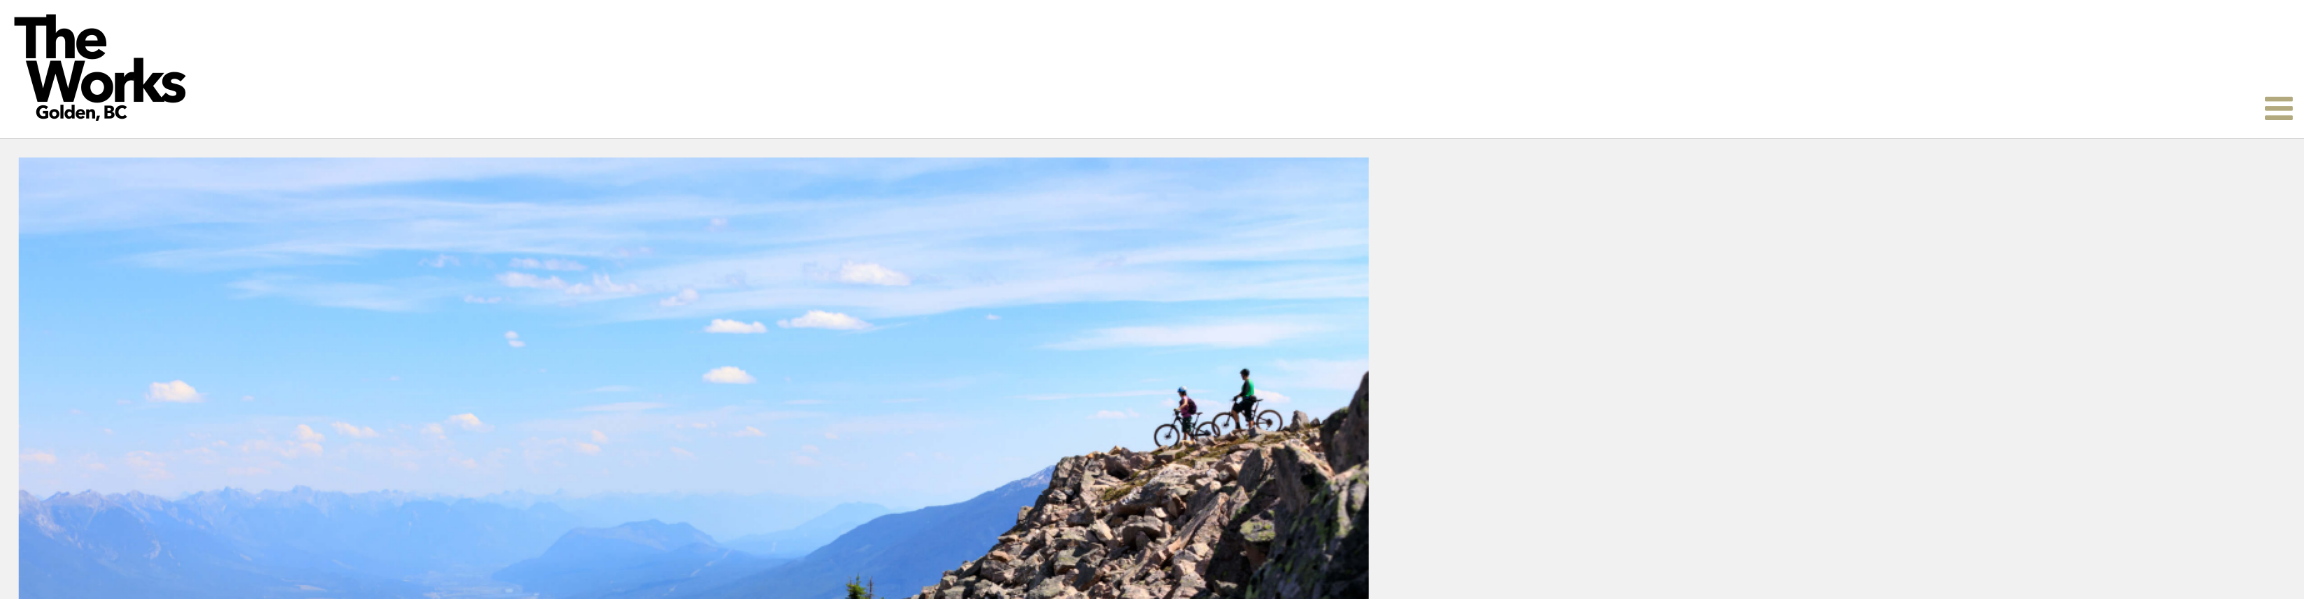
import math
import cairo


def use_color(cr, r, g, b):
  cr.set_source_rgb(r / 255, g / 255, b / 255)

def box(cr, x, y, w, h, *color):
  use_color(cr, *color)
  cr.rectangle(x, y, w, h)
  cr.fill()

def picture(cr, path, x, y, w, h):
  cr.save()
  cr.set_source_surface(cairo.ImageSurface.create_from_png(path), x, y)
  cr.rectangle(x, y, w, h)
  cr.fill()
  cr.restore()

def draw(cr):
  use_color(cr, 241, 241, 241)
  cr.paint()
  box(cr, 0, 0, 2304, 138, 255, 255, 255)
  box(cr, 0, 138, 2304, 1, 216, 216, 216)
  picture(cr, "img_01.png", 14, 14, 172, 107)
  picture(cr, "img_02.png", 2265, 96, 28, 24)
  picture(cr, "img_03.png", 18, 157, 1351, 442)


surface = cairo.ImageSurface(cairo.FORMAT_RGB24, 2304, 599)
cr = cairo.Context(surface)
options = cairo.FontOptions()
options.set_hint_metrics(cairo.HINT_METRICS_OFF)
options.set_hint_style(cairo.HINT_STYLE_NONE)
cr.set_font_options(options)
cr.set_miter_limit(4)
draw(cr)
surface.write_to_png("out.png")
